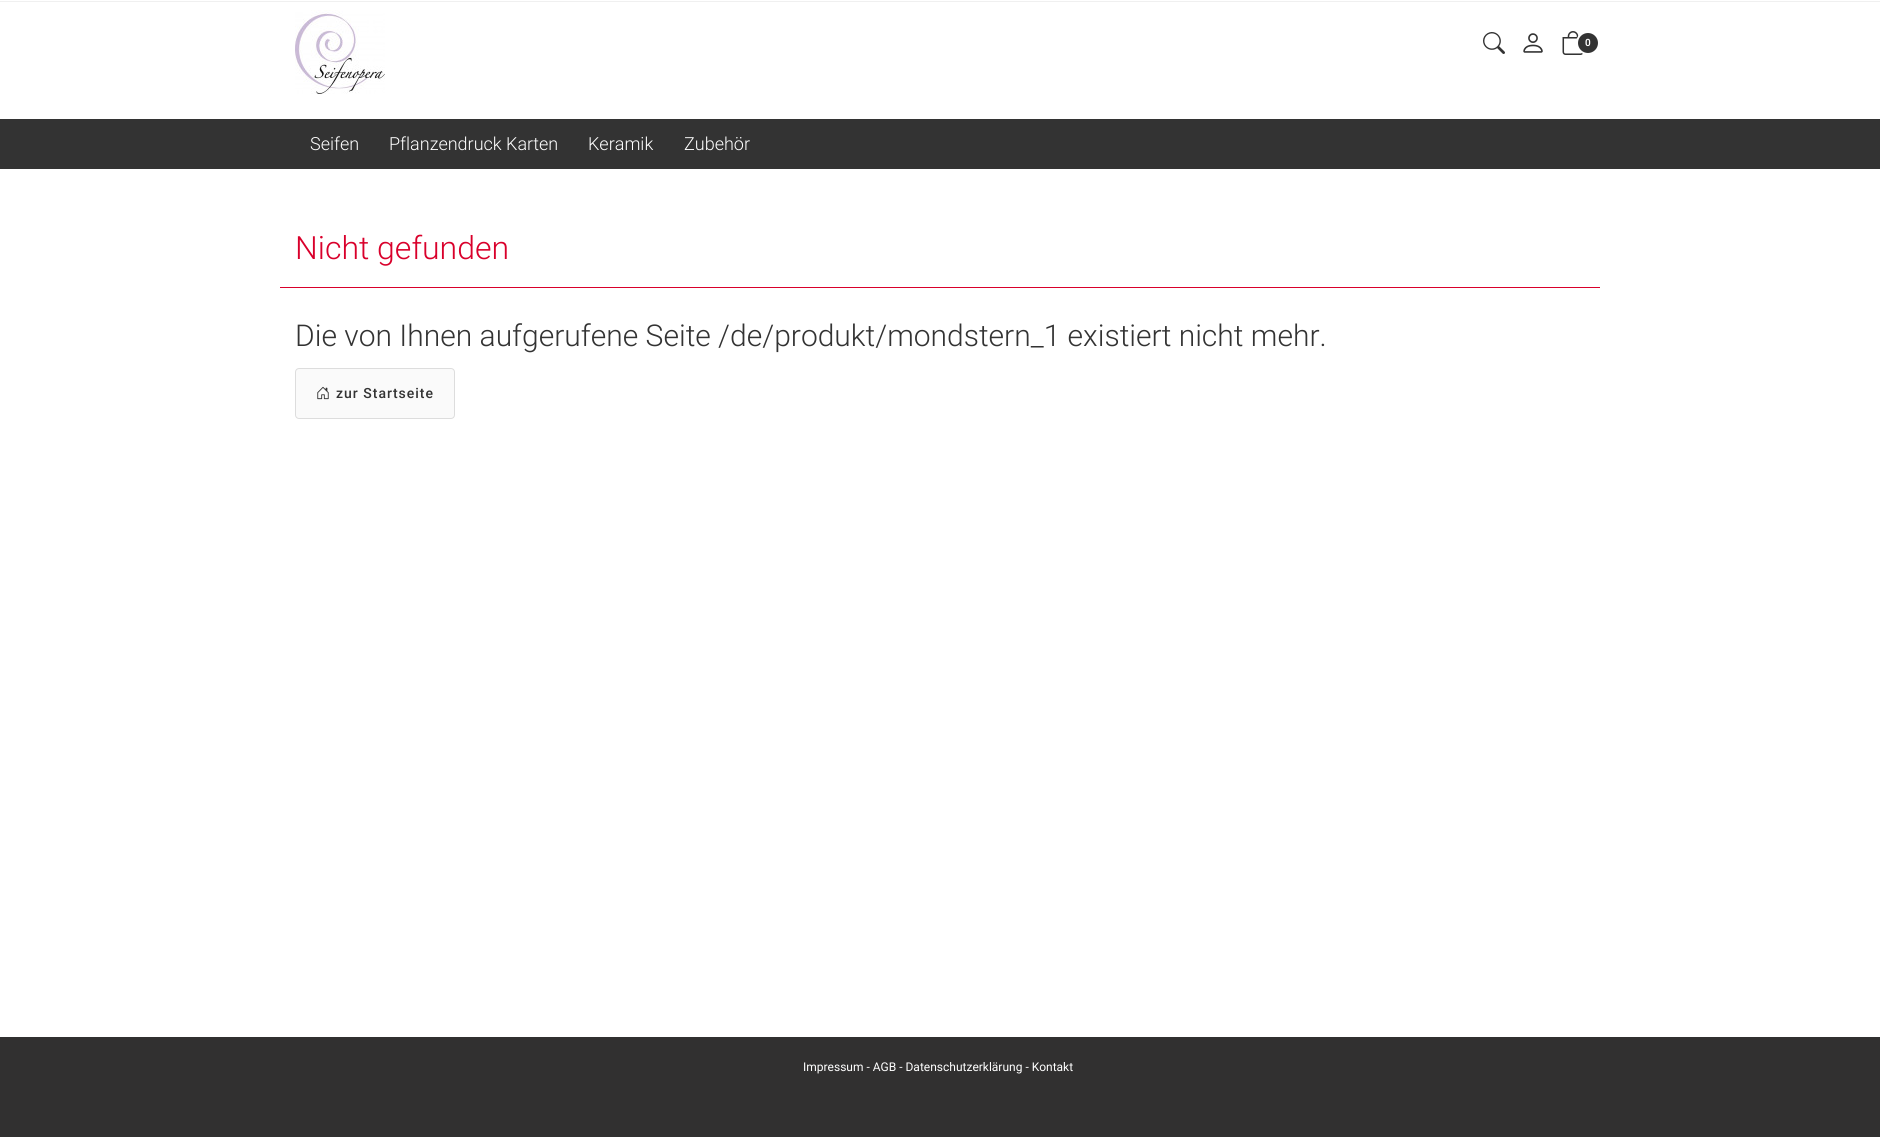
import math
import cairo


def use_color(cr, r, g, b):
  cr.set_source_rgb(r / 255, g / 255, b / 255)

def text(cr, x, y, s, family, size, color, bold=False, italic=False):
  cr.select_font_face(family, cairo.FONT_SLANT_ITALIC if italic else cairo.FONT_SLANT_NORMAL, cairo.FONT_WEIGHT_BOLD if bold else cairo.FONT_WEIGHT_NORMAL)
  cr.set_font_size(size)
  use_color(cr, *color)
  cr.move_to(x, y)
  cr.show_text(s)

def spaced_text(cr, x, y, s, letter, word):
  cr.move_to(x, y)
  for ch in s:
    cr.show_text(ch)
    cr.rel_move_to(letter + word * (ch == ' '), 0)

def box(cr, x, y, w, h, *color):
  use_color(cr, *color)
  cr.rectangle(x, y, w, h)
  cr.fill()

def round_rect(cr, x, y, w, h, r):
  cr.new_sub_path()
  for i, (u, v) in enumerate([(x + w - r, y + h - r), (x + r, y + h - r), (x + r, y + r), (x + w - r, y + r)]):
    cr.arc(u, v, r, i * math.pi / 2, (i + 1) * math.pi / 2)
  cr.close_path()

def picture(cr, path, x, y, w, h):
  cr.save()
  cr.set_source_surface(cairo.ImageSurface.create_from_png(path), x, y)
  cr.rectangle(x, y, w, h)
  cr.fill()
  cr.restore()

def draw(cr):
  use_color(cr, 255, 255, 255)
  cr.paint()
  box(cr, 0, 1, 1880, 1, 240, 240, 240)
  picture(cr, "img_01.png", 295, 10, 90, 84)
  picture(cr, "img_02.png", 1483, 32, 22, 22)
  picture(cr, "img_03.png", 1523, 33, 20, 20)
  picture(cr, "img_04.png", 1562, 31, 22, 24)
  use_color(cr, 51, 51, 51)
  cr.arc(1588, 43, 11, 0, 2 * math.pi)
  cr.fill_preserve()
  use_color(cr, 255, 255, 255)
  cr.stroke()
  box(cr, 0, 1037, 1880, 100, 49, 48, 48)
  text(cr, 1585, 46, "0", "Roboto SemiBold", 10, (255, 255, 255))
  cr.save()
  cr.rectangle(0, 119, 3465, 50)
  cr.clip()
  cr.rectangle(-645, -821, 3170, 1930)
  use_color(cr, 51, 51, 51)
  cr.set_line_width(1880)
  cr.stroke()
  cr.restore()
  box(cr, 295, 119, 1290, 50, 51, 51, 51)
  text(cr, 310, 150, "Seifen", "Roboto Light", 18, (255, 255, 255))
  text(cr, 389, 150, "Pflanzendruck Karten", "Roboto Light", 18, (255, 255, 255))
  text(cr, 588, 150, "Keramik", "Roboto Light", 18, (255, 255, 255))
  text(cr, 684, 150, "Zubehör", "Roboto Light", 18, (255, 255, 255))
  box(cr, 280, 287, 1320, 1, 217, 0, 43)
  text(cr, 295, 259, "Nicht gefunden", "Roboto Light", 32, (217, 0, 43))
  text(cr, 295, 346, "Die von Ihnen aufgerufene Seite /de/produkt/mondstern_1 existiert nicht mehr.", "Roboto Light", 30, (51, 51, 51))
  use_color(cr, 250, 250, 250)
  round_rect(cr, 295.5, 368.5, 159, 50, 3.5)
  cr.fill_preserve()
  use_color(cr, 221, 221, 221)
  cr.set_line_width(1)
  cr.stroke()
  picture(cr, "img_05.png", 317, 386, 12, 14)
  cr.select_font_face("Roboto Medium")
  cr.set_font_size(14)
  use_color(cr, 51, 51, 51)
  spaced_text(cr, 336, 398, "zur Startseite", 1, 0)
  text(cr, 803, 1071, "Impressum - AGB - Datenschutzerklärung - Kontakt", "Roboto", 12, (255, 255, 255))


surface = cairo.ImageSurface(cairo.FORMAT_RGB24, 1880, 1137)
cr = cairo.Context(surface)
options = cairo.FontOptions()
options.set_hint_metrics(cairo.HINT_METRICS_OFF)
options.set_hint_style(cairo.HINT_STYLE_NONE)
cr.set_font_options(options)
cr.set_miter_limit(4)
draw(cr)
surface.write_to_png("out.png")
